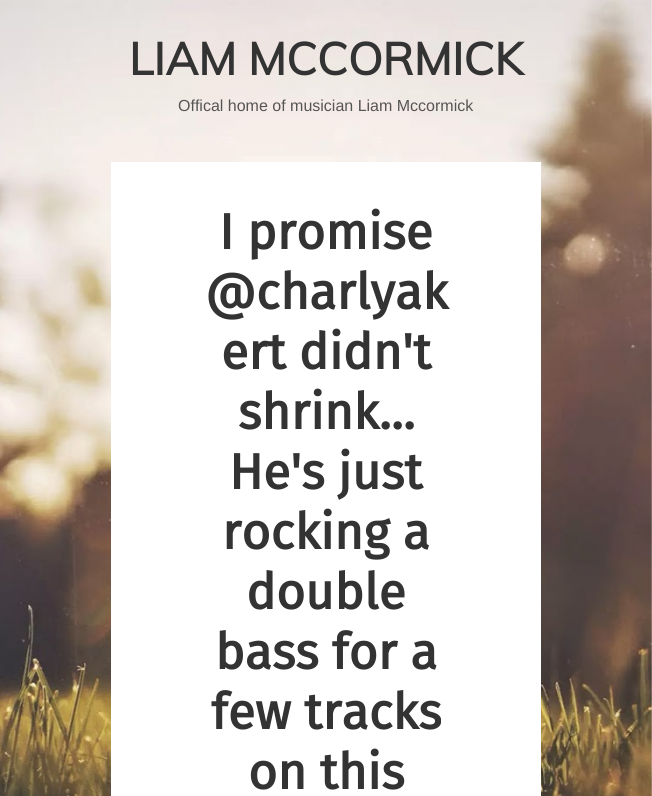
import math
import cairo


def use_color(cr, r, g, b):
  cr.set_source_rgb(r / 255, g / 255, b / 255)

def text(cr, x, y, s, family, size, color, bold=False, italic=False):
  cr.select_font_face(family, cairo.FONT_SLANT_ITALIC if italic else cairo.FONT_SLANT_NORMAL, cairo.FONT_WEIGHT_BOLD if bold else cairo.FONT_WEIGHT_NORMAL)
  cr.set_font_size(size)
  use_color(cr, *color)
  cr.move_to(x, y)
  cr.show_text(s)

def box(cr, x, y, w, h, *color):
  use_color(cr, *color)
  cr.rectangle(x, y, w, h)
  cr.fill()

def picture(cr, path, x, y, w, h):
  cr.save()
  cr.set_source_surface(cairo.ImageSurface.create_from_png(path), x, y)
  cr.rectangle(x, y, w, h)
  cr.fill()
  cr.restore()

def draw(cr):
  use_color(cr, 255, 255, 255)
  cr.paint()
  picture(cr, "img_01.png", 0, 0, 652, 796)
  box(cr, 111, 162, 430, 634, 255, 255, 255)
  text(cr, 129, 75, "LIAM MCCORMICK", "Muli", 45, (51, 51, 51), bold=True)
  text(cr, 178, 111, "Offical home of musician Liam Mccormick", "Liberation Sans", 16, (85, 85, 85))
  text(cr, 219, 249, "I promise", "Fira Sans", 50, (51, 51, 51), bold=True)
  text(cr, 205, 309, "@charlyak", "Fira Sans", 50, (51, 51, 51), bold=True)
  text(cr, 221, 369, "ert didn't", "Fira Sans", 50, (51, 51, 51), bold=True)
  text(cr, 238, 429, "shrink...", "Fira Sans", 50, (51, 51, 51), bold=True)
  text(cr, 229, 489, "He's just", "Fira Sans", 50, (51, 51, 51), bold=True)
  text(cr, 222, 549, "rocking a", "Fira Sans", 50, (51, 51, 51), bold=True)
  text(cr, 246, 609, "double", "Fira Sans", 50, (51, 51, 51), bold=True)
  text(cr, 215, 669, "bass for a", "Fira Sans", 50, (51, 51, 51), bold=True)
  text(cr, 211, 729, "few tracks", "Fira Sans", 50, (51, 51, 51), bold=True)
  text(cr, 248, 789, "on this", "Fira Sans", 50, (51, 51, 51), bold=True)


surface = cairo.ImageSurface(cairo.FORMAT_RGB24, 652, 796)
cr = cairo.Context(surface)
options = cairo.FontOptions()
options.set_hint_metrics(cairo.HINT_METRICS_OFF)
options.set_hint_style(cairo.HINT_STYLE_NONE)
cr.set_font_options(options)
cr.set_miter_limit(4)
draw(cr)
surface.write_to_png("out.png")
